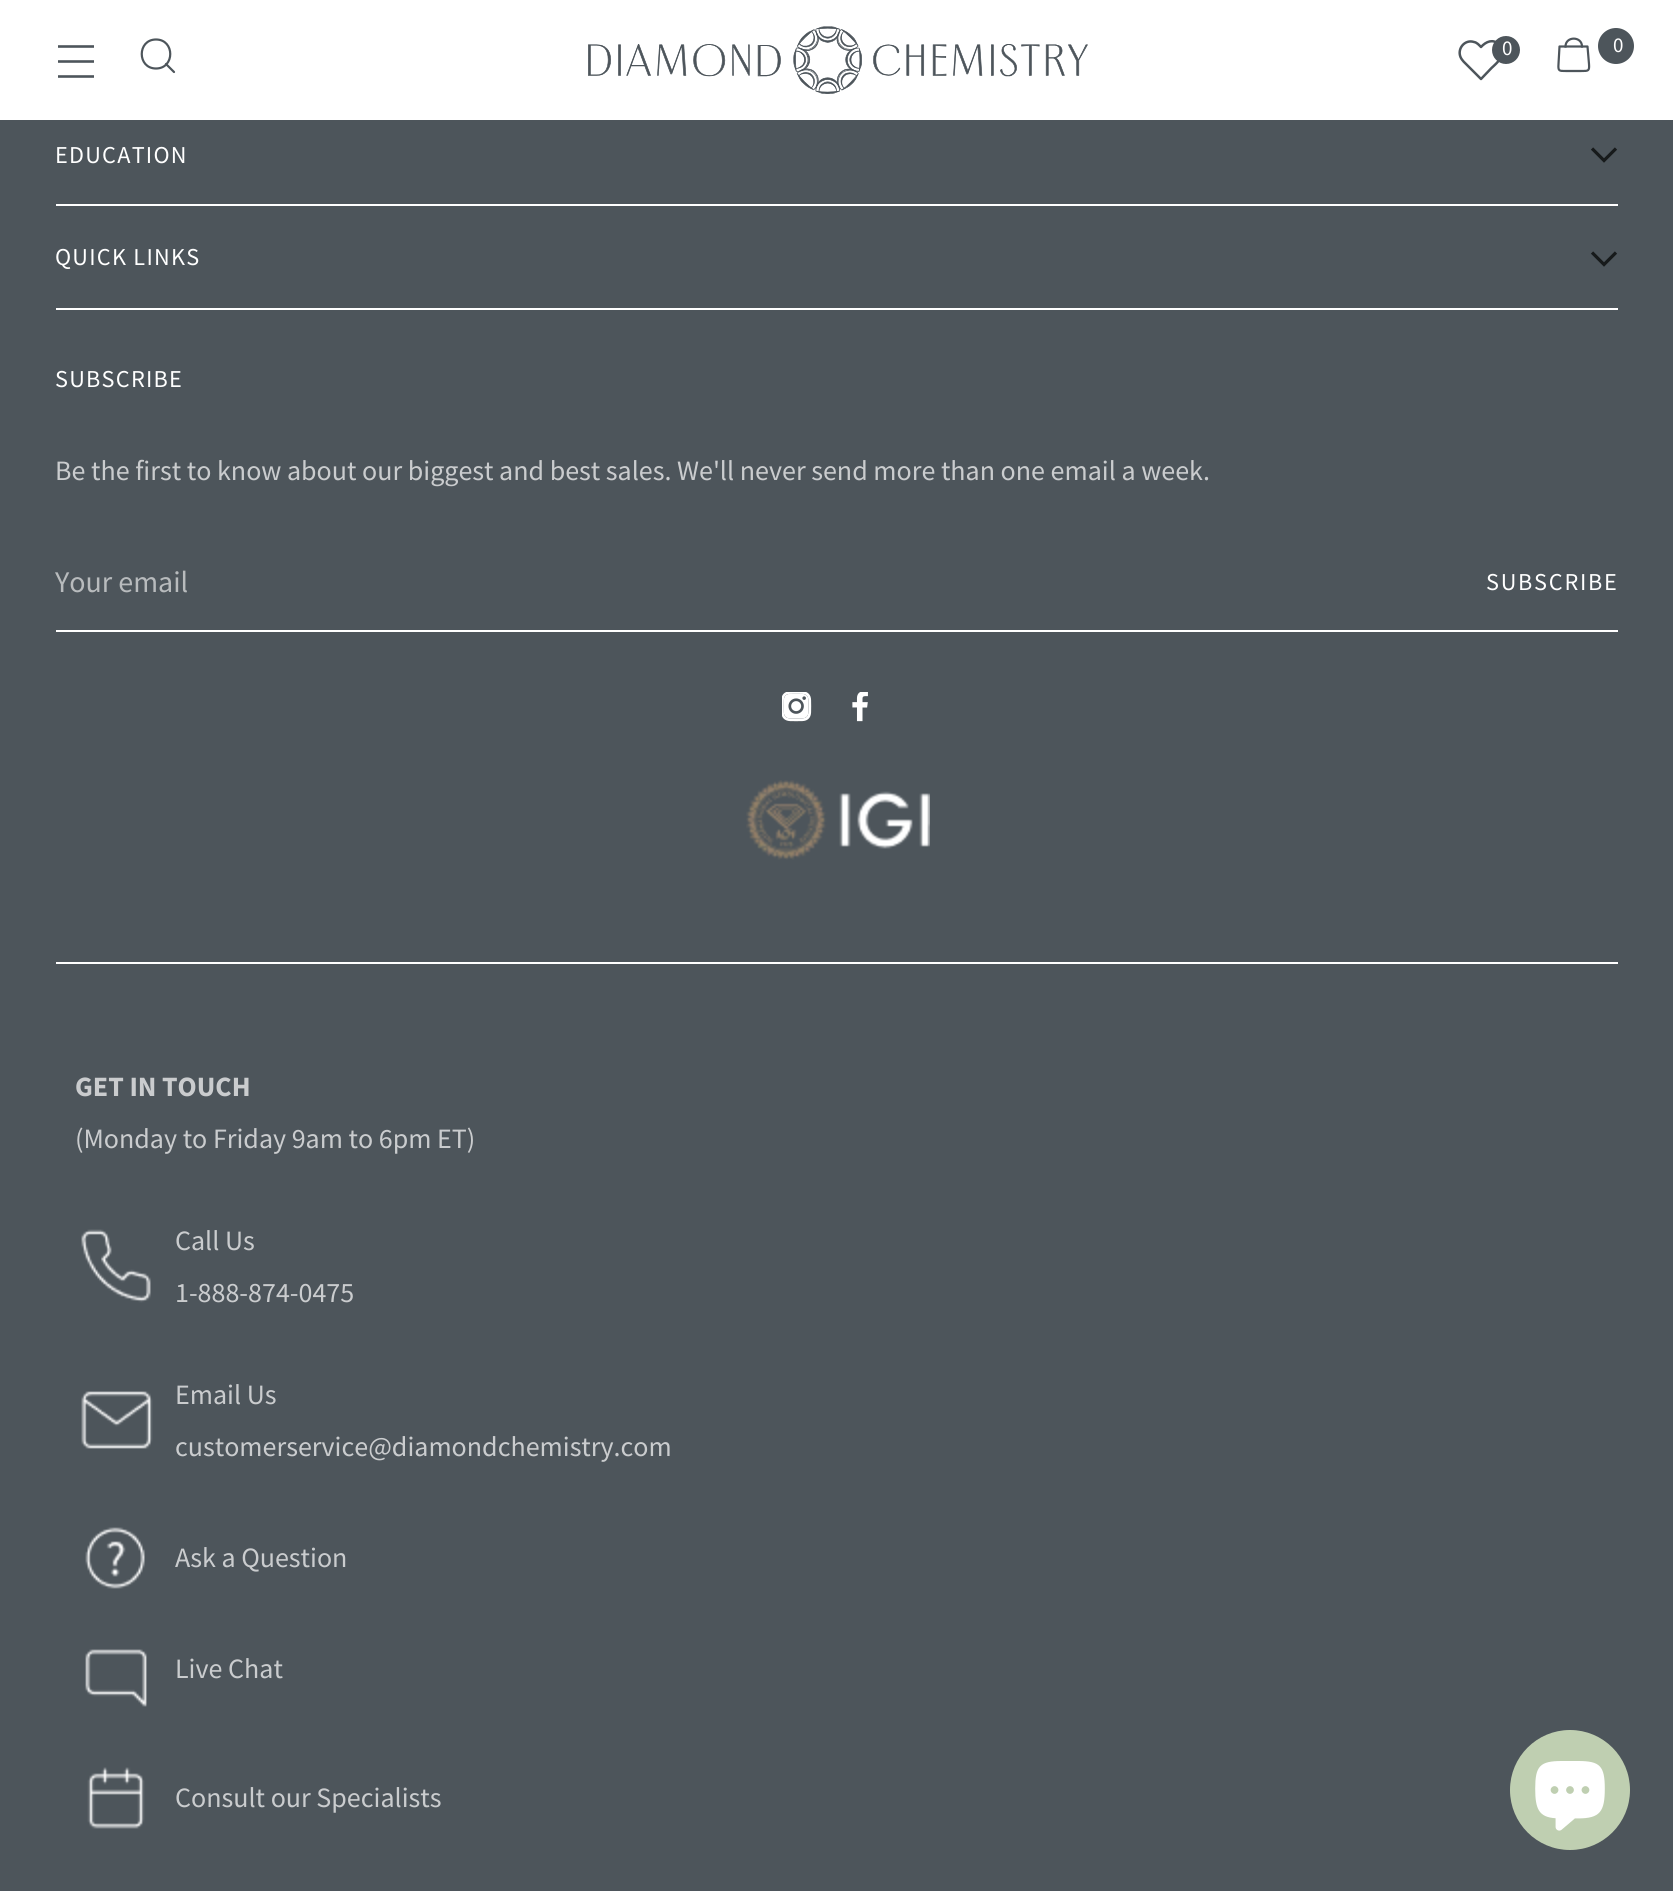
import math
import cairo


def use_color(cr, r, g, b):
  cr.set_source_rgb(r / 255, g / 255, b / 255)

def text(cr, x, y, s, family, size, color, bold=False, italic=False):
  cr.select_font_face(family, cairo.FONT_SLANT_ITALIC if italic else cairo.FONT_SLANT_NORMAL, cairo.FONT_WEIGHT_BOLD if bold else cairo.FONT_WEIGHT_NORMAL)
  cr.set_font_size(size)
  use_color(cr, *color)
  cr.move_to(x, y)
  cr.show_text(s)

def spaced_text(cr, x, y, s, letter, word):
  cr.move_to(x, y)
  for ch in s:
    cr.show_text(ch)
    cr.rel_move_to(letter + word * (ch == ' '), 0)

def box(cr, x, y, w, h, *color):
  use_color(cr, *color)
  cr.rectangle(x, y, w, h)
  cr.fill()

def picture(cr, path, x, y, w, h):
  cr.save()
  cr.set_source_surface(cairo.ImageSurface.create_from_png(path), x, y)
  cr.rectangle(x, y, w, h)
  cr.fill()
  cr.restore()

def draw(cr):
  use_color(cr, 77, 85, 91)
  cr.paint()
  box(cr, 0, 0, 1673, 120, 255, 255, 255)
  cr.new_path()
  cr.move_to(58, 61.5)
  cr.line_to(94, 61.5)
  cr.move_to(58, 46.5)
  cr.line_to(94, 46.5)
  cr.move_to(58, 76.5)
  cr.line_to(94, 76.5)
  use_color(cr, 77, 85, 91)
  cr.set_line_width(2.6)
  cr.stroke()
  cr.new_path()
  cr.move_to(156, 68.5)
  cr.curve_to(175, 68.5, 175, 39.5, 156, 39.5)
  cr.curve_to(137, 39.5, 137, 68.5, 156, 68.5)
  cr.close_path()
  cr.move_to(174, 72)
  cr.line_to(166, 64)
  cr.set_line_width(2.2)
  cr.set_line_cap(cairo.LINE_CAP_ROUND)
  cr.set_line_join(cairo.LINE_JOIN_ROUND)
  cr.stroke()
  picture(cr, "img_01.png", 588, 26, 500, 68)
  cr.new_path()
  cr.move_to(1499, 44.5)
  cr.curve_to(1493, 38.5, 1486, 41.5, 1481, 47)
  cr.curve_to(1479, 45, 1477, 42.5, 1474, 42)
  cr.curve_to(1465, 39, 1457, 48.5, 1460.5, 57)
  cr.curve_to(1462, 60.5, 1465, 63, 1467.5, 65.5)
  cr.line_to(1481, 79)
  cr.line_to(1491.5, 68)
  cr.curve_to(1498, 62, 1508, 53.5, 1499, 44.5)
  cr.close_path()
  cr.set_line_width(2.5)
  cr.stroke()
  cr.arc(1506, 50, 14, 0, 2 * math.pi)
  cr.fill()
  cr.new_path()
  cr.move_to(1559.5, 46.5)
  cr.line_to(1558.5, 64)
  cr.curve_to(1558, 71, 1559, 71, 1565.5, 71)
  cr.line_to(1581.5, 71)
  cr.curve_to(1588.5, 71, 1589.5, 71, 1589, 64)
  cr.line_to(1587.5, 46.5)
  cr.close_path()
  cr.set_line_width(2.2)
  cr.stroke()
  cr.new_path()
  cr.move_to(1582, 46.5)
  cr.curve_to(1582, 36, 1565.5, 36, 1565.5, 46.5)
  cr.set_line_cap(cairo.LINE_CAP_SQUARE)
  cr.stroke()
  cr.arc(1616, 46, 18, 0, 2 * math.pi)
  cr.fill()
  box(cr, 56, 204, 1562, 2, 255, 255, 255)
  cr.new_path()
  cr.move_to(1592, 148.5)
  cr.line_to(1604, 160.5)
  cr.line_to(1616, 148.5)
  use_color(cr, 23, 26, 27)
  cr.set_line_width(3.2)
  cr.set_line_cap(cairo.LINE_CAP_BUTT)
  cr.set_line_join(cairo.LINE_JOIN_MITER)
  cr.stroke()
  box(cr, 56, 308, 1562, 2, 255, 255, 255)
  cr.new_path()
  cr.move_to(1592, 252.5)
  cr.line_to(1604, 264.5)
  cr.line_to(1616, 252.5)
  use_color(cr, 23, 26, 27)
  cr.stroke()
  box(cr, 56, 962, 1562, 2, 255, 255, 255)
  box(cr, 56, 630, 1562, 2, 255, 255, 255)
  picture(cr, "img_02.png", 782, 692, 30, 30)
  picture(cr, "img_03.png", 852, 692, 16, 30)
  picture(cr, "img_04.png", 746, 780, 184, 80)
  picture(cr, "img_05.png", 81, 1229, 70, 74)
  picture(cr, "img_06.png", 81, 1391, 72, 58)
  picture(cr, "img_07.png", 85, 1527, 60, 62)
  picture(cr, "img_08.png", 85, 1649, 62, 58)
  picture(cr, "img_09.png", 87, 1767, 58, 62)
  use_color(cr, 191, 207, 177)
  cr.arc(1570, 1790, 60, 0, 2 * math.pi)
  cr.fill()
  picture(cr, "img_10.png", 1535, 1761, 70, 70)
  text(cr, 1502, 55, "0", "Source Sans Pro", 21, (255, 255, 255))
  text(cr, 1613, 52, "0", "Source Sans Pro", 21, (255, 255, 255))
  cr.set_font_size(24.25)
  spaced_text(cr, 55, 163, "EDUCATION", 1.25, 0)
  spaced_text(cr, 55, 265, "QUICK LINKS", 1.25, 0)
  spaced_text(cr, 55, 387, "SUBSCRIBE", 1.25, 0)
  text(cr, 55, 480, "Be the first to know about our biggest and best sales. We'll never send more than one email a week.", "Source Sans Pro", 28, (202, 204, 206))
  text(cr, 55, 592, "Your email", "Source Sans Pro", 30, (184, 187, 189))
  cr.set_font_size(24.25)
  use_color(cr, 255, 255, 255)
  spaced_text(cr, 1486, 590, "SUBSCRIBE", 1.75, 0)
  text(cr, 75, 1096, "GET IN TOUCH", "Source Sans Pro", 28, (202, 204, 206), bold=True)
  text(cr, 75, 1148, "(Monday to Friday 9am to 6pm ET)", "Source Sans Pro", 28, (202, 204, 206))
  text(cr, 175, 1250, "Call Us", "Source Sans Pro", 28, (202, 204, 206))
  text(cr, 175, 1302, "1-888-874-0475", "Source Sans Pro", 28, (202, 204, 206))
  text(cr, 175, 1404, "Email Us", "Source Sans Pro", 28, (202, 204, 206))
  text(cr, 175, 1456, "customerservice@diamondchemistry.com", "Source Sans Pro", 28, (202, 204, 206))
  text(cr, 175, 1567, "Ask a Question", "Source Sans Pro", 28, (202, 204, 206))
  text(cr, 175, 1678, "Live Chat", "Source Sans Pro", 28, (202, 204, 206))
  text(cr, 175, 1807, "Consult our Specialists", "Source Sans Pro", 28, (202, 204, 206))


surface = cairo.ImageSurface(cairo.FORMAT_RGB24, 1673, 1891)
cr = cairo.Context(surface)
options = cairo.FontOptions()
options.set_hint_metrics(cairo.HINT_METRICS_OFF)
options.set_hint_style(cairo.HINT_STYLE_NONE)
cr.set_font_options(options)
cr.set_miter_limit(4)
draw(cr)
surface.write_to_png("out.png")
